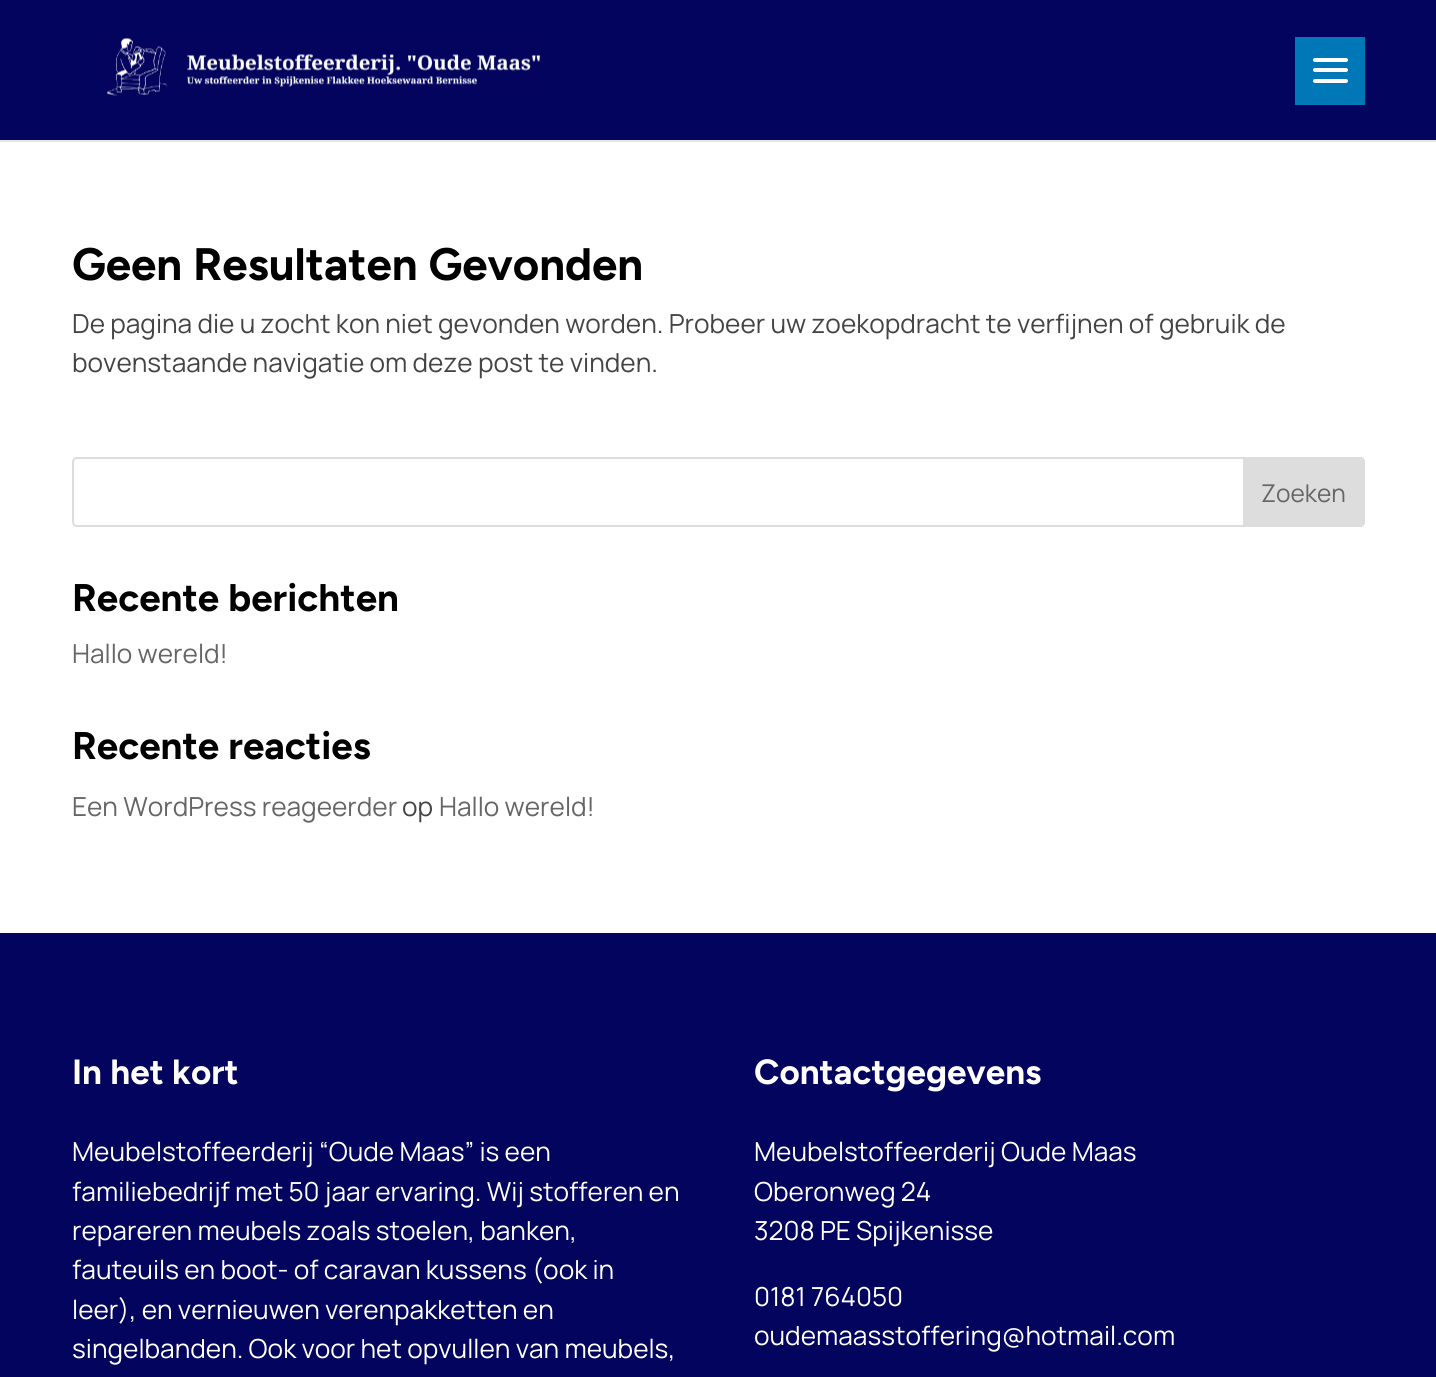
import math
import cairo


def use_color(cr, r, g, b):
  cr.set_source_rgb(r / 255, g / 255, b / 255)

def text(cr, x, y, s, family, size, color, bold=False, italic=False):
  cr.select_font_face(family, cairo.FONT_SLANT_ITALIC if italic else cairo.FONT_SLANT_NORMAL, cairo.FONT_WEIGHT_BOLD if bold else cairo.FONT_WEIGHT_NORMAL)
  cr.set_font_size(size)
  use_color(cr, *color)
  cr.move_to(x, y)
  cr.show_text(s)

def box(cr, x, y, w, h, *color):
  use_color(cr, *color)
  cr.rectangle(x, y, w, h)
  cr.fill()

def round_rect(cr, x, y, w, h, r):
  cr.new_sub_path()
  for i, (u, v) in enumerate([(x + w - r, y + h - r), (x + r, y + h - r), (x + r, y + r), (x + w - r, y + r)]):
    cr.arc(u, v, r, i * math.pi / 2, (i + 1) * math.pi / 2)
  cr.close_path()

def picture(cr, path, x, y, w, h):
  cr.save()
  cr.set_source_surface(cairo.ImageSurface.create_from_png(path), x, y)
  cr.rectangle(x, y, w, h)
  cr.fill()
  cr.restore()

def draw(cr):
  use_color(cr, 255, 255, 255)
  cr.paint()
  use_color(cr, 230, 230, 230)
  cr.new_path()
  cr.move_to(0, 140)
  cr.line_to(0, 142)
  cr.line_to(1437, 142)
  cr.line_to(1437, 2)
  cr.line_to(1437, 140)
  cr.close_path()
  cr.fill()
  box(cr, 0, 0, 1436, 140, 3, 4, 94)
  picture(cr, "img_01.png", 107, 38, 434, 58)
  box(cr, 1295, 37, 70, 68, 0, 119, 182)
  use_color(cr, 255, 255, 255)
  round_rect(cr, 1313, 68, 35, 4, 2)
  cr.fill()
  round_rect(cr, 1313, 58, 35, 4, 2)
  cr.fill()
  round_rect(cr, 1313, 79, 35, 4, 2)
  cr.fill()
  round_rect(cr, 73, 458, 1291, 68, 4)
  use_color(cr, 221, 221, 221)
  cr.stroke()
  cr.new_path()
  cr.move_to(1244, 458)
  cr.line_to(1360, 458)
  cr.curve_to(1362, 458, 1364, 460, 1364, 462)
  cr.line_to(1364, 522)
  cr.curve_to(1364, 524, 1362, 526, 1360, 526)
  cr.line_to(1244, 526)
  cr.close_path()
  cr.fill_preserve()
  cr.stroke()
  box(cr, 0, 933, 1436, 444, 3, 4, 94)
  text(cr, 72, 280, "Geen Resultaten Gevonden", "Figtree Light", 45.5, (0, 0, 0))
  text(cr, 72, 333, "De pagina die u zocht kon niet gevonden worden. Probeer uw zoekopdracht te verfijnen of gebruik de", "Manrope ExtraLight", 26.25, (68, 68, 68))
  text(cr, 72, 372, "bovenstaande navigatie om deze post te vinden.", "Manrope ExtraLight", 26.25, (68, 68, 68))
  text(cr, 1261, 502, "Zoeken", "Manrope ExtraLight", 24.5, (102, 102, 102))
  text(cr, 72, 611, "Recente berichten", "Figtree Light", 38.5, (0, 0, 0))
  text(cr, 72, 663, "Hallo wereld!", "Manrope ExtraLight", 26.25, (102, 102, 102))
  text(cr, 72, 759, "Recente reacties", "Figtree Light", 38.5, (0, 0, 0))
  text(cr, 72, 816, "Een WordPress reageerder", "Manrope ExtraLight", 26.25, (102, 102, 102))
  text(cr, 402, 816, "op", "Manrope ExtraLight", 26.25, (68, 68, 68))
  text(cr, 439, 816, "Hallo wereld!", "Manrope ExtraLight", 26.25, (102, 102, 102))
  text(cr, 72, 1084, "In het kort", "Figtree Light", 35, (255, 255, 255))
  text(cr, 72, 1161, "Meubelstoffeerderij “Oude Maas” is een", "Manrope ExtraLight", 26.25, (255, 255, 255))
  text(cr, 72, 1201, "familiebedrijf met 50 jaar ervaring. Wij stofferen en", "Manrope ExtraLight", 26.25, (255, 255, 255))
  text(cr, 72, 1240, "repareren meubels zoals stoelen, banken,", "Manrope ExtraLight", 26.25, (255, 255, 255))
  text(cr, 72, 1279, "fauteuils en boot- of caravan kussens (ook in", "Manrope ExtraLight", 26.25, (255, 255, 255))
  text(cr, 72, 1319, "leer), en vernieuwen verenpakketten en", "Manrope ExtraLight", 26.25, (255, 255, 255))
  text(cr, 72, 1358, "singelbanden. Ook voor het opvullen van meubels,", "Manrope ExtraLight", 26.25, (255, 255, 255))
  text(cr, 754, 1084, "Contactgegevens", "Figtree Light", 35, (255, 255, 255))
  text(cr, 754, 1161, "Meubelstoffeerderij Oude Maas", "Manrope ExtraLight", 26.25, (255, 255, 255))
  text(cr, 754, 1201, "Oberonweg 24", "Manrope ExtraLight", 26.25, (255, 255, 255))
  text(cr, 754, 1240, "3208 PE Spijkenisse", "Manrope ExtraLight", 26.25, (255, 255, 255))
  text(cr, 754, 1306, "0181 764050", "Manrope ExtraLight", 26.25, (255, 255, 255))
  text(cr, 754, 1345, "oudemaasstoffering@hotmail.com", "Manrope ExtraLight", 26.25, (255, 255, 255))


surface = cairo.ImageSurface(cairo.FORMAT_RGB24, 1436, 1377)
cr = cairo.Context(surface)
options = cairo.FontOptions()
options.set_hint_metrics(cairo.HINT_METRICS_OFF)
options.set_hint_style(cairo.HINT_STYLE_NONE)
cr.set_font_options(options)
cr.set_miter_limit(4)
draw(cr)
surface.write_to_png("out.png")
